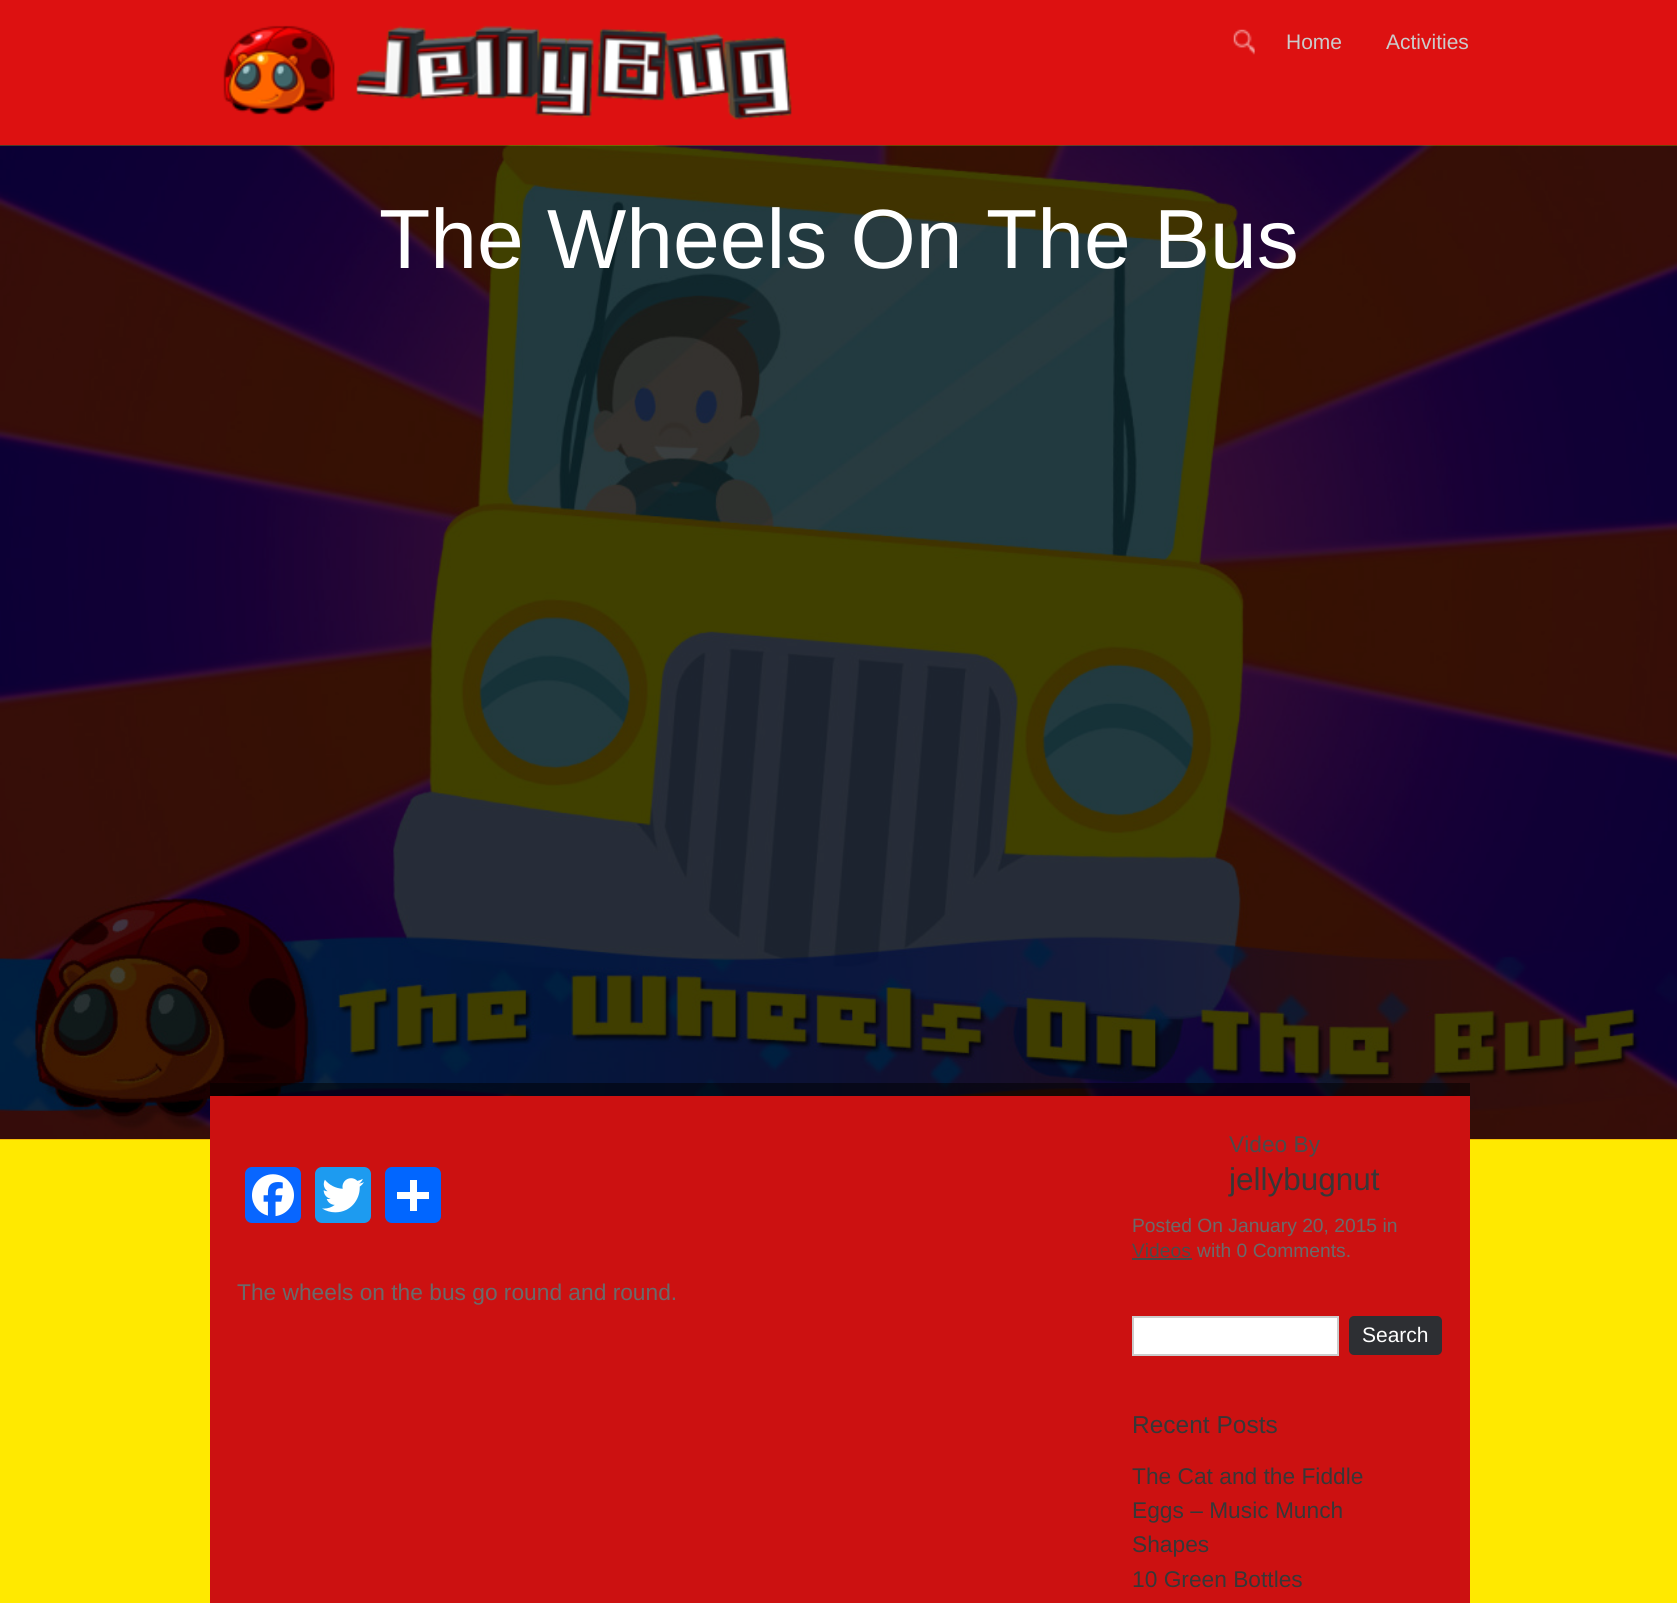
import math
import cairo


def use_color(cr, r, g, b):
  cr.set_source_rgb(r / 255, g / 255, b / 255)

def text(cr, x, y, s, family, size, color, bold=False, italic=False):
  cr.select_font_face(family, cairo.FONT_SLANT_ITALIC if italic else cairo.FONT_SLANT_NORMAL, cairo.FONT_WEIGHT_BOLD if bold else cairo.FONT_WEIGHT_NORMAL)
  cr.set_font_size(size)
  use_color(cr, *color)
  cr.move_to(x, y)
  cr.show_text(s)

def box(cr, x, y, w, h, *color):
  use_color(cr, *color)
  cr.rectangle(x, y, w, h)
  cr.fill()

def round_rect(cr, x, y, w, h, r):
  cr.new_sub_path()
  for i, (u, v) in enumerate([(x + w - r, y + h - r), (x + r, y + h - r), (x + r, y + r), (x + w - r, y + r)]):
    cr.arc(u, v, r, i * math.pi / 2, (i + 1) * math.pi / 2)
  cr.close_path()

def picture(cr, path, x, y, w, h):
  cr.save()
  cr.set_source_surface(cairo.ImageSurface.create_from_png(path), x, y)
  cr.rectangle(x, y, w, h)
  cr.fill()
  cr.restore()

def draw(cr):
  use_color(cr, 255, 233, 0)
  cr.paint()
  box(cr, 0, 0, 1677, 145, 221, 17, 17)
  picture(cr, "img_01.png", 223, 25, 569, 95)
  picture(cr, "img_02.png", 1233, 29, 22, 26)
  picture(cr, "img_03.png", 0, 145, 1677, 995)
  cr.set_source_rgba(0, 0, 0, 0.5)
  cr.rectangle(210, 1083, 1260, 13)
  cr.fill()
  box(cr, 210, 1096, 1260, 507, 204, 17, 17)
  use_color(cr, 8, 102, 255)
  round_rect(cr, 245, 1167, 56, 56, 7)
  cr.fill()
  picture(cr, "img_04.png", 252, 1174, 42, 43)
  use_color(cr, 29, 155, 240)
  round_rect(cr, 315, 1167, 56, 56, 7)
  cr.fill()
  picture(cr, "img_05.png", 322, 1178, 42, 35)
  use_color(cr, 1, 102, 255)
  round_rect(cr, 385, 1167, 56, 56, 7)
  cr.fill()
  box(cr, 410, 1180, 7, 31, 255, 255, 255)
  box(cr, 397, 1192, 32, 7, 255, 255, 255)
  box(cr, 1132, 1258, 60, 2, 71, 71, 71)
  use_color(cr, 255, 255, 255)
  cr.rectangle(1133, 1317, 205, 38)
  cr.fill_preserve()
  use_color(cr, 204, 204, 204)
  cr.stroke()
  use_color(cr, 45, 47, 51)
  round_rect(cr, 1349, 1316, 93, 39, 5)
  cr.fill()
  text(cr, 1286, 49, "Home", "Liberation Sans", 21, (203, 203, 203))
  text(cr, 1386, 49, "Activities", "Liberation Sans", 21, (203, 203, 203))
  text(cr, 379, 268, "The Wheels On The Bus", "Liberation Sans", 84, (255, 255, 255))
  text(cr, 237, 1300, "The wheels on the bus go round and round.", "Liberation Sans", 22.75, (106, 106, 106))
  text(cr, 1229, 1152, "Video By", "Liberation Sans", 22.75, (75, 75, 75))
  text(cr, 1229, 1190, "jellybugnut", "Liberation Sans", 31.5, (55, 55, 55))
  text(cr, 1132, 1232, "Posted On January 20, 2015 in", "Liberation Sans", 19.25, (106, 106, 106))
  text(cr, 1132, 1257, "Videos", "Liberation Sans", 19.25, (75, 75, 75))
  text(cr, 1197, 1257, "with 0 Comments.", "Liberation Sans", 19.25, (106, 106, 106))
  text(cr, 1362, 1342, "Search", "Liberation Sans", 21, (255, 255, 255))
  text(cr, 1132, 1433, "Recent Posts", "Liberation Sans", 24.5, (55, 55, 55))
  text(cr, 1132, 1484, "The Cat and the Fiddle", "Liberation Sans", 22.75, (55, 55, 55))
  text(cr, 1132, 1518, "Eggs – Music Munch", "Liberation Sans", 22.75, (55, 55, 55))
  text(cr, 1132, 1552, "Shapes", "Liberation Sans", 22.75, (55, 55, 55))
  text(cr, 1132, 1587, "10 Green Bottles", "Liberation Sans", 22.75, (55, 55, 55))


surface = cairo.ImageSurface(cairo.FORMAT_RGB24, 1677, 1603)
cr = cairo.Context(surface)
options = cairo.FontOptions()
options.set_hint_metrics(cairo.HINT_METRICS_OFF)
options.set_hint_style(cairo.HINT_STYLE_NONE)
cr.set_font_options(options)
cr.set_miter_limit(4)
draw(cr)
surface.write_to_png("out.png")
